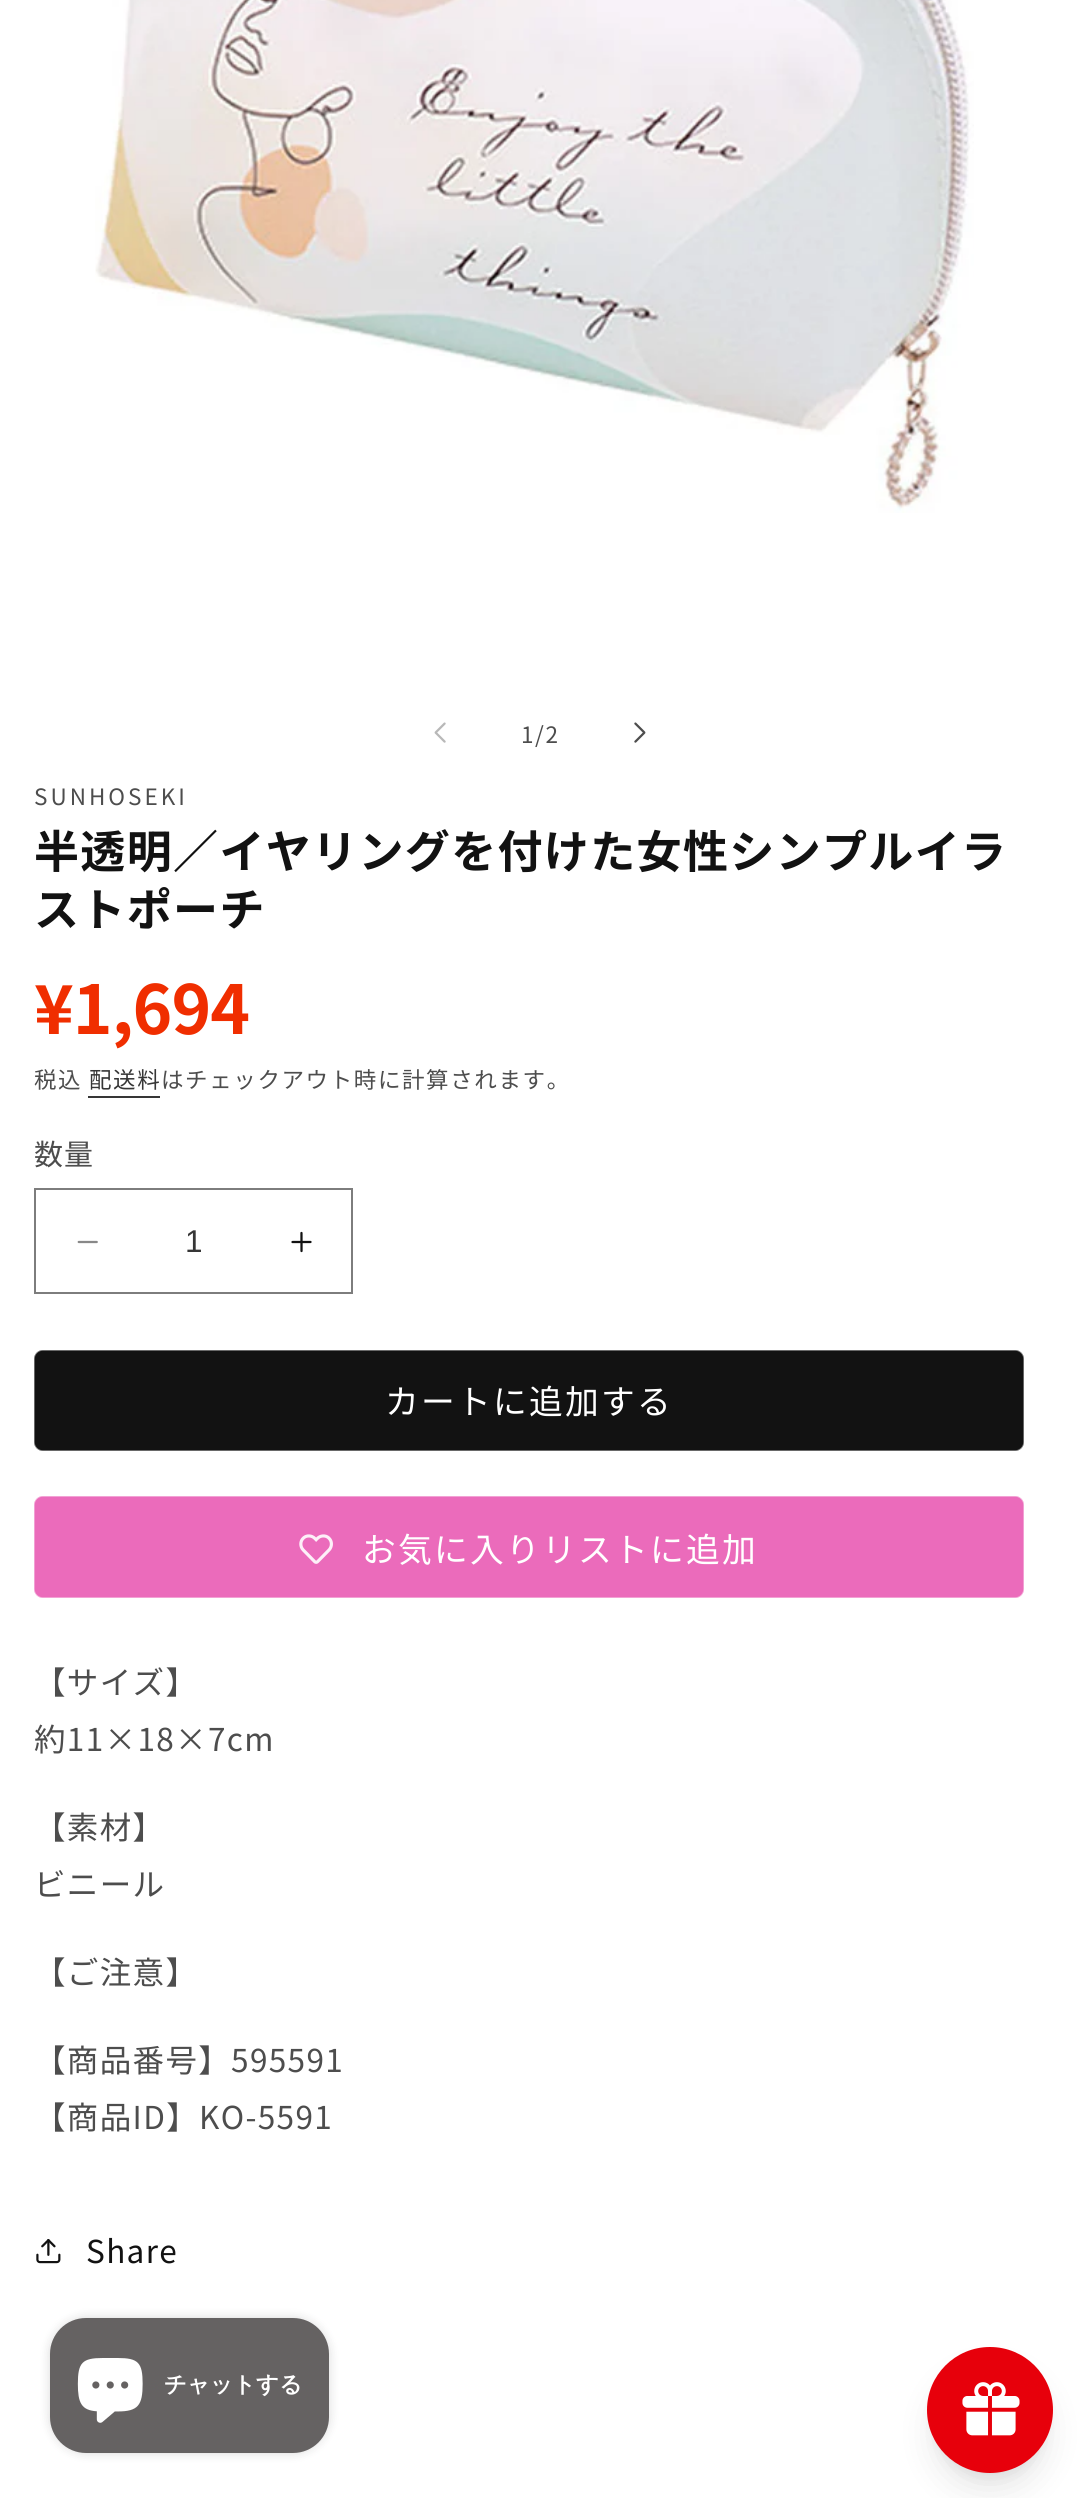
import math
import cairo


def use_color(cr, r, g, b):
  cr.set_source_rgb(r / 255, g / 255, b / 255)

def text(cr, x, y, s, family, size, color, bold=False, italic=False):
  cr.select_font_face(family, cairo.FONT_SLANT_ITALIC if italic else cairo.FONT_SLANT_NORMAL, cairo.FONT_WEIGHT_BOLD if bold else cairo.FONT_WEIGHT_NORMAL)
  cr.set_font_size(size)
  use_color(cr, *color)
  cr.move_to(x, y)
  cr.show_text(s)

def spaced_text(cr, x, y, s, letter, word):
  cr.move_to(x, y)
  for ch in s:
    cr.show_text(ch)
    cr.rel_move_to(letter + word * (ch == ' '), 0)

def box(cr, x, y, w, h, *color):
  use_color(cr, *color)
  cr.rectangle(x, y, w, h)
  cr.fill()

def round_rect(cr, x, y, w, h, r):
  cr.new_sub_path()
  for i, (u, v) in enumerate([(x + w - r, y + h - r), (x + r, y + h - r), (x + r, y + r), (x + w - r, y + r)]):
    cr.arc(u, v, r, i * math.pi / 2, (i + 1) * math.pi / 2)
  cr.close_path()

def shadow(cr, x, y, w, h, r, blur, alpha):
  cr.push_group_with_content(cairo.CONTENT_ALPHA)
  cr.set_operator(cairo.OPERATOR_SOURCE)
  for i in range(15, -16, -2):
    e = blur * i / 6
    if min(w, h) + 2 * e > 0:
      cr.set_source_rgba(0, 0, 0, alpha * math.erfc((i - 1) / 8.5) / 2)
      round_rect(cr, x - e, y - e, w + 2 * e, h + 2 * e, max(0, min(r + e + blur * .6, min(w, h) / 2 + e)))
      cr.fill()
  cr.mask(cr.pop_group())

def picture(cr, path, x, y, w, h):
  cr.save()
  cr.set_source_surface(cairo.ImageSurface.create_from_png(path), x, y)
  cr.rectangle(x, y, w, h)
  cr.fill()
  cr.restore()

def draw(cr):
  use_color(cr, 255, 255, 255)
  cr.paint()
  picture(cr, "img_01.png", 95, 0, 879, 513)
  picture(cr, "img_02.png", 434, 722, 12, 21)
  picture(cr, "img_03.png", 634, 722, 12, 21)
  box(cr, 88, 1096, 72, 2, 54, 54, 54)
  picture(cr, "img_04.png", 77, 1240, 21, 4)
  picture(cr, "img_05.png", 291, 1231, 21, 22)
  cr.rectangle(35, 1189, 317, 104)
  use_color(cr, 125, 125, 125)
  cr.stroke()
  use_color(cr, 18, 18, 18)
  round_rect(cr, 34, 1350, 990, 101, 9)
  cr.fill()
  round_rect(cr, 34.35, 1350.35, 989.3, 100.3, 8.65)
  cr.set_source_rgba(1, 1, 1, 0.5)
  cr.set_line_width(0.7)
  cr.stroke()
  use_color(cr, 235, 107, 187)
  round_rect(cr, 34, 1496, 990, 102, 9)
  cr.fill()
  picture(cr, "img_06.png", 299, 1534, 34, 30)
  round_rect(cr, 34.35, 1496.35, 989.3, 101.3, 8.65)
  cr.set_source_rgba(1, 1, 1, 0.5)
  cr.stroke()
  picture(cr, "img_07.png", 36, 2239, 25, 25)
  use_color(cr, 0, 0, 0)
  shadow(cr, 50, 2318, 279, 135, 36, 5.5, 0.15)
  use_color(cr, 101, 98, 98)
  round_rect(cr, 50, 2318, 279, 135, 36)
  cr.fill()
  picture(cr, "img_08.png", 77, 2358, 66, 65)
  use_color(cr, 0, 0, 0)
  shadow(cr, 936, 2365, 108, 108, 54, 7, 0.1)
  shadow(cr, 934, 2376, 112, 113, 56, 17, 0.1)
  use_color(cr, 231, 0, 11)
  cr.arc(990, 2410, 63, 0, 2 * math.pi)
  cr.fill()
  picture(cr, "img_09.png", 962, 2382, 58, 54)
  cr.select_font_face("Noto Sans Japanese")
  cr.set_font_size(22.5)
  use_color(cr, 77, 77, 77)
  spaced_text(cr, 521, 743, "1/2", 1.6, 0)
  spaced_text(cr, 34, 805, "SUNHOSEKI", 3, 0)
  cr.select_font_face("Noto Sans Japanese", cairo.FONT_SLANT_NORMAL, cairo.FONT_WEIGHT_BOLD)
  cr.set_font_size(45)
  use_color(cr, 18, 18, 18)
  spaced_text(cr, 34, 868, "半透明／イヤリングを付けた女性シンプルイラ", 1.35, 0)
  spaced_text(cr, 34, 926, "ストポーチ", 1.35, 0)
  cr.set_font_size(67.5)
  use_color(cr, 240, 46, 0)
  spaced_text(cr, 34, 1034, "¥1,694", -1, 0)
  cr.select_font_face("Noto Sans Japanese")
  cr.set_font_size(22.5)
  use_color(cr, 77, 77, 77)
  spaced_text(cr, 34, 1088, "税込", 1.6, 0)
  use_color(cr, 54, 54, 54)
  spaced_text(cr, 89, 1088, "配送料", 1.6, 0)
  use_color(cr, 77, 77, 77)
  spaced_text(cr, 161, 1088, "はチェックアウト時に計算されます。", 1.6, 0)
  cr.set_font_size(29)
  spaced_text(cr, 34, 1165, "数量", 1, 0)
  text(cr, 185, 1252, "1", "Liberation Sans", 31.5, (54, 54, 54))
  cr.select_font_face("Noto Sans Japanese")
  cr.set_font_size(33.75)
  use_color(cr, 255, 255, 255)
  spaced_text(cr, 385, 1414, "カートに追加する", 2.25, 0)
  spaced_text(cr, 362, 1562, "お気に入りリストに追加", 2.25, 0)
  cr.set_font_size(31.5)
  use_color(cr, 77, 77, 77)
  spaced_text(cr, 34, 1694, "【サイズ】", 1.35, 0)
  spaced_text(cr, 34, 1751, "約11×18×7cm", 1.35, 0)
  spaced_text(cr, 34, 1839, "【素材】", 1.35, 0)
  spaced_text(cr, 34, 1896, "ビニール", 1.35, 0)
  spaced_text(cr, 34, 1984, "【ご注意】", 1.35, 0)
  spaced_text(cr, 34, 2072, "【商品番号】595591", 1.35, 0)
  spaced_text(cr, 34, 2129, "【商品ID】KO-5591", 1.35, 0)
  use_color(cr, 18, 18, 18)
  spaced_text(cr, 86, 2263, "Share", 1.35, 0)
  text(cr, 164, 2392, "チャットする", "WenQuanYi Zen Hei", 22.5, (255, 255, 255), bold=True)


surface = cairo.ImageSurface(cairo.FORMAT_RGB24, 1079, 2498)
cr = cairo.Context(surface)
options = cairo.FontOptions()
options.set_hint_metrics(cairo.HINT_METRICS_OFF)
options.set_hint_style(cairo.HINT_STYLE_NONE)
cr.set_font_options(options)
cr.set_miter_limit(4)
draw(cr)
surface.write_to_png("out.png")
